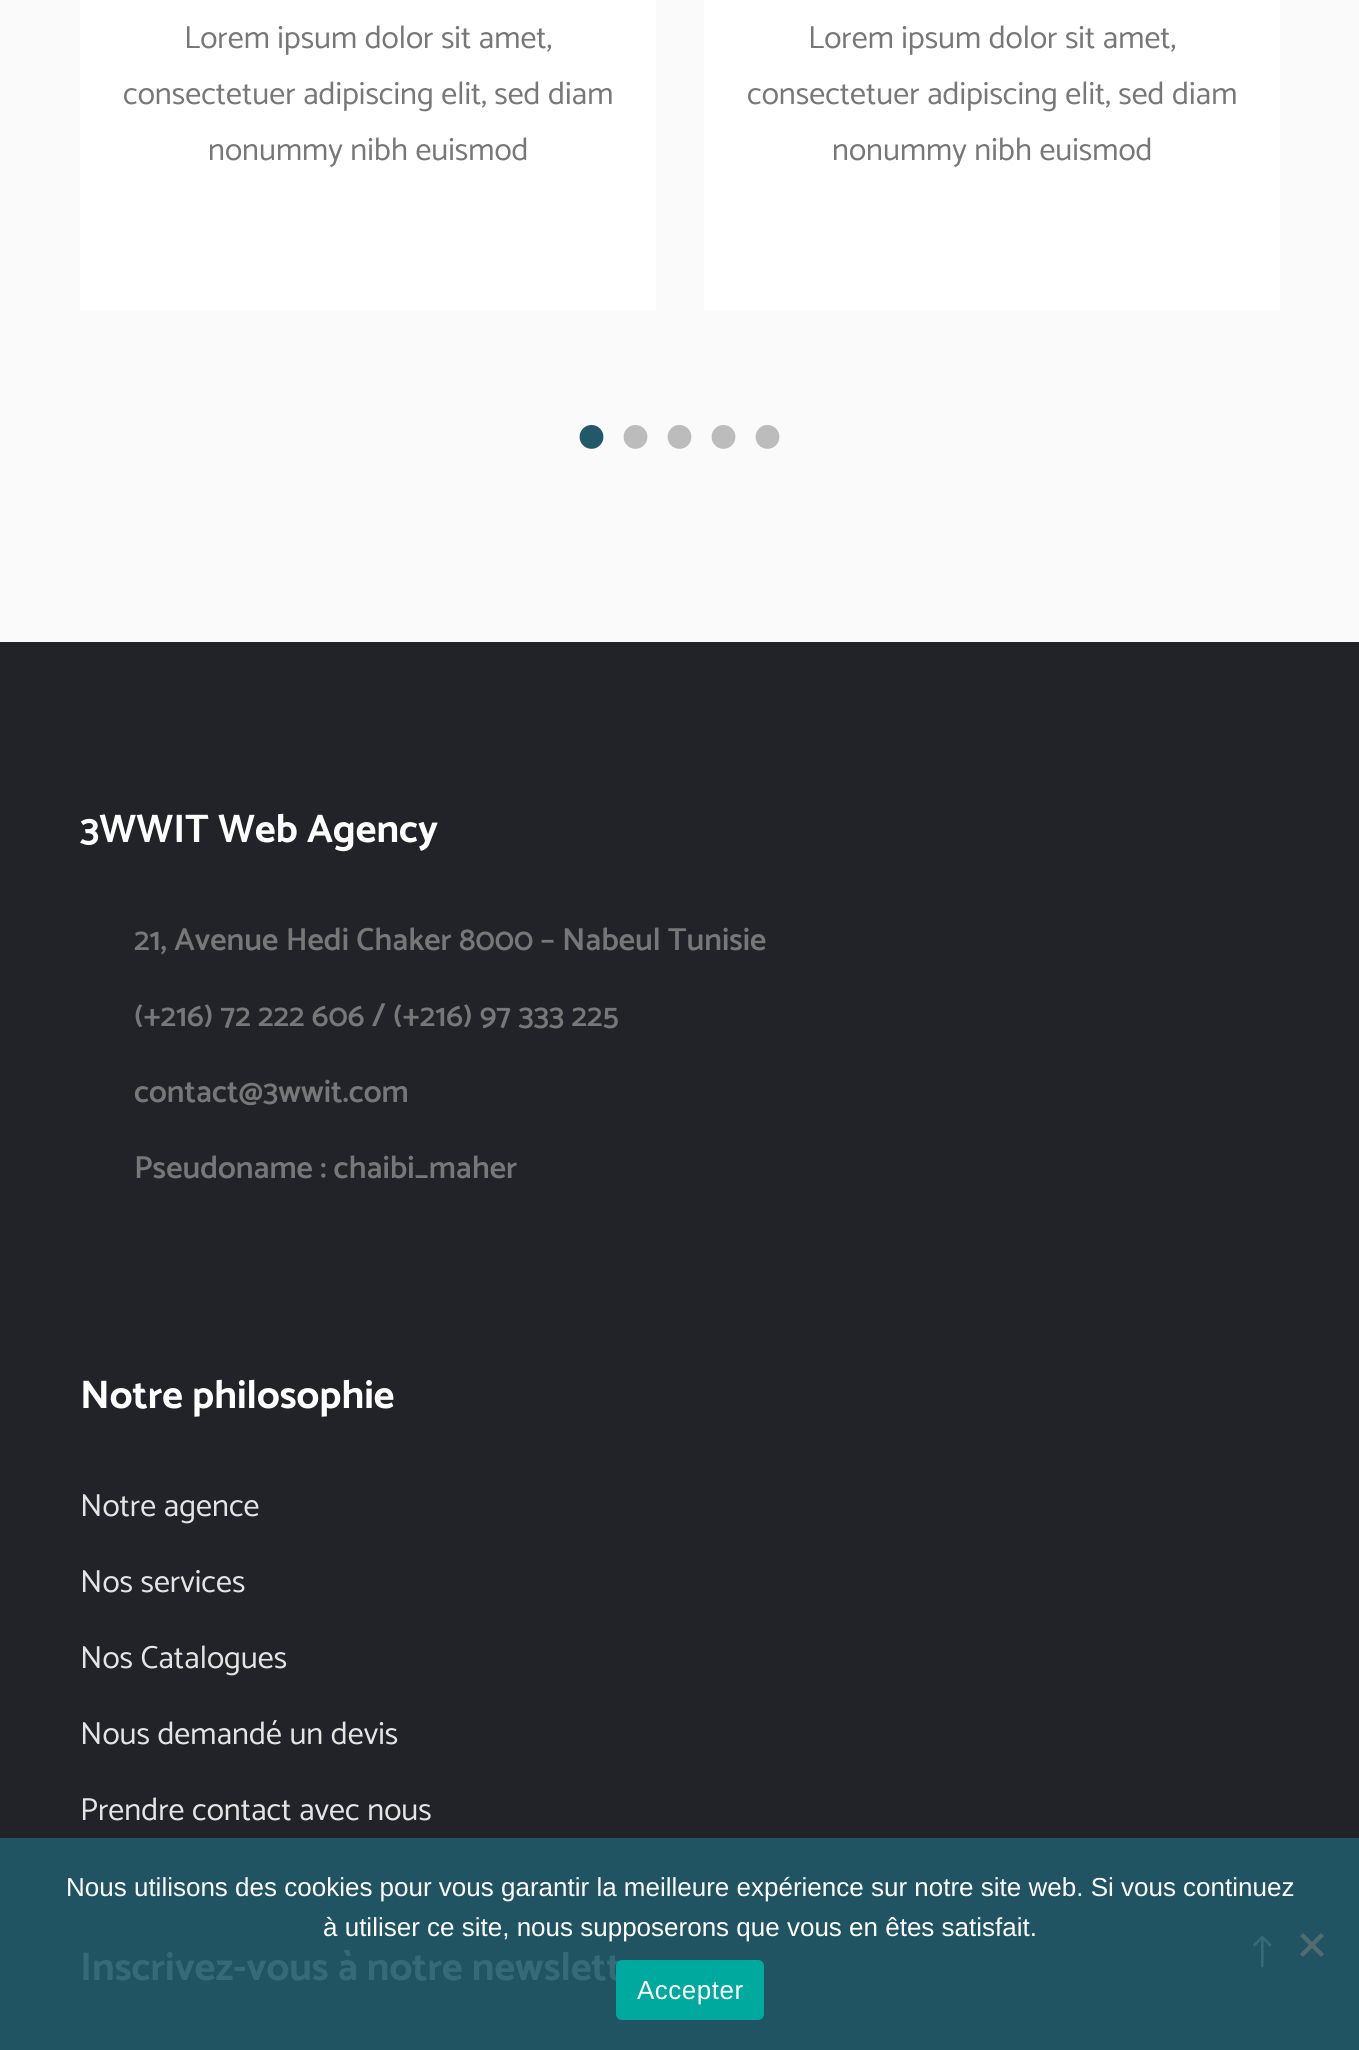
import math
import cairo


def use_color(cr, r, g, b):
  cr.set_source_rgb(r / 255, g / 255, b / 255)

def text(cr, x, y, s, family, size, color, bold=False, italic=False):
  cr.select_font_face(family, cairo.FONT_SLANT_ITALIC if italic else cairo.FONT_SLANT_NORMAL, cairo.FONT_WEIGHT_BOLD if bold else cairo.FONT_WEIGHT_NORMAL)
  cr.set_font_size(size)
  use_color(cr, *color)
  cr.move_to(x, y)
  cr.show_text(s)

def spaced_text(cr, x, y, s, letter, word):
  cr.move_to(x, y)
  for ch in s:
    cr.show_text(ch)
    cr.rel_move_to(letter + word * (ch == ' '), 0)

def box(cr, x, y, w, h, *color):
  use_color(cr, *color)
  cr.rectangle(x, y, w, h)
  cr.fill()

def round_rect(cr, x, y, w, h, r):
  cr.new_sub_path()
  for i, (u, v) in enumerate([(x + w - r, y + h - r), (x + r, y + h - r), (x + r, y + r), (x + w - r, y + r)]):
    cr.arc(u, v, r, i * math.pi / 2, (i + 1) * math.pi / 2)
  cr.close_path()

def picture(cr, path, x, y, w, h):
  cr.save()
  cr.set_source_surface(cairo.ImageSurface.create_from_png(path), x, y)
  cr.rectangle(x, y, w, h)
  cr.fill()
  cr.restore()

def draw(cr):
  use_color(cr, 250, 250, 250)
  cr.paint()
  box(cr, 80, 0, 576, 310, 255, 255, 255)
  box(cr, 704, 0, 576, 310, 255, 255, 255)
  box(cr, 0, 642, 1359, 1196, 34, 35, 40)
  box(cr, 0, 1838, 1359, 212, 33, 84, 98)
  picture(cr, "img_01.png", 1253, 1935, 19, 33)
  use_color(cr, 81, 107, 114)
  cr.new_path()
  cr.move_to(1321, 1933)
  cr.line_to(1324, 1936)
  cr.line_to(1303, 1957)
  cr.line_to(1300, 1954)
  cr.close_path()
  cr.fill()
  cr.new_path()
  cr.move_to(1300, 1936)
  cr.line_to(1303, 1933)
  cr.line_to(1324, 1954)
  cr.line_to(1321, 1957)
  cr.close_path()
  cr.fill()
  text(cr, 184, 48, "Lorem ipsum dolor sit amet,", "Catamaran", 32, (119, 119, 119))
  text(cr, 123, 104, "consectetuer adipiscing elit, sed diam", "Catamaran", 32, (119, 119, 119))
  text(cr, 208, 160, "nonummy nibh euismod", "Catamaran", 32, (119, 119, 119))
  text(cr, 808, 48, "Lorem ipsum dolor sit amet,", "Catamaran", 32, (119, 119, 119))
  text(cr, 747, 104, "consectetuer adipiscing elit, sed diam", "Catamaran", 32, (119, 119, 119))
  text(cr, 832, 160, "nonummy nibh euismod", "Catamaran", 32, (119, 119, 119))
  text(cr, 574, 470, "•", "Liberation Serif", 100, (33, 89, 104))
  text(cr, 618, 470, "•", "Liberation Serif", 100, (188, 188, 188))
  text(cr, 662, 470, "•", "Liberation Serif", 100, (188, 188, 188))
  text(cr, 706, 470, "•", "Liberation Serif", 100, (188, 188, 188))
  text(cr, 750, 470, "•", "Liberation Serif", 100, (188, 188, 188))
  text(cr, 80, 842, "3WWIT Web Agency", "Catamaran", 40, (255, 255, 255), bold=True)
  text(cr, 134, 950, "21, Avenue Hedi Chaker 8000 – Nabeul Tunisie", "Catamaran SemiBold", 32, (119, 119, 119))
  text(cr, 134, 1026, "(+216) 72 222 606 / (+216) 97 333 225", "Catamaran SemiBold", 32, (119, 119, 119))
  text(cr, 134, 1102, "contact@3wwit.com", "Catamaran SemiBold", 32, (119, 119, 119))
  text(cr, 134, 1178, "Pseudoname : chaibi_maher", "Catamaran SemiBold", 32, (119, 119, 119))
  text(cr, 80, 1408, "Notre philosophie", "Catamaran", 40, (255, 255, 255), bold=True)
  text(cr, 80, 1516, "Notre agence", "Catamaran", 32, (229, 228, 228))
  text(cr, 80, 1592, "Nos services", "Catamaran", 32, (229, 228, 228))
  text(cr, 80, 1668, "Nos Catalogues", "Catamaran", 32, (229, 228, 228))
  text(cr, 80, 1744, "Nous demandé un devis", "Catamaran", 32, (229, 228, 228))
  text(cr, 80, 1820, "Prendre contact avec nous", "Catamaran", 32, (229, 228, 228))
  text(cr, 80, 1980, "Inscrivez-vous à notre newslett", "Catamaran", 40, (55, 106, 119), bold=True)
  text(cr, 66, 1896, "Nous utilisons des cookies pour vous garantir la meilleure expérience sur notre site web. Si vous continuez", "Liberation Sans", 26, (255, 255, 255))
  text(cr, 323, 1936, "à utiliser ce site, nous supposerons que vous en êtes satisfait.", "Liberation Sans", 26, (255, 255, 255))
  use_color(cr, 0, 169, 157)
  round_rect(cr, 616, 1960, 148, 60, 6)
  cr.fill()
  use_color(cr, 255, 255, 255)
  spaced_text(cr, 637, 1999, "Accepter", 0.5, 0)


surface = cairo.ImageSurface(cairo.FORMAT_RGB24, 1359, 2050)
cr = cairo.Context(surface)
options = cairo.FontOptions()
options.set_hint_metrics(cairo.HINT_METRICS_OFF)
options.set_hint_style(cairo.HINT_STYLE_NONE)
cr.set_font_options(options)
cr.set_miter_limit(4)
draw(cr)
surface.write_to_png("out.png")
